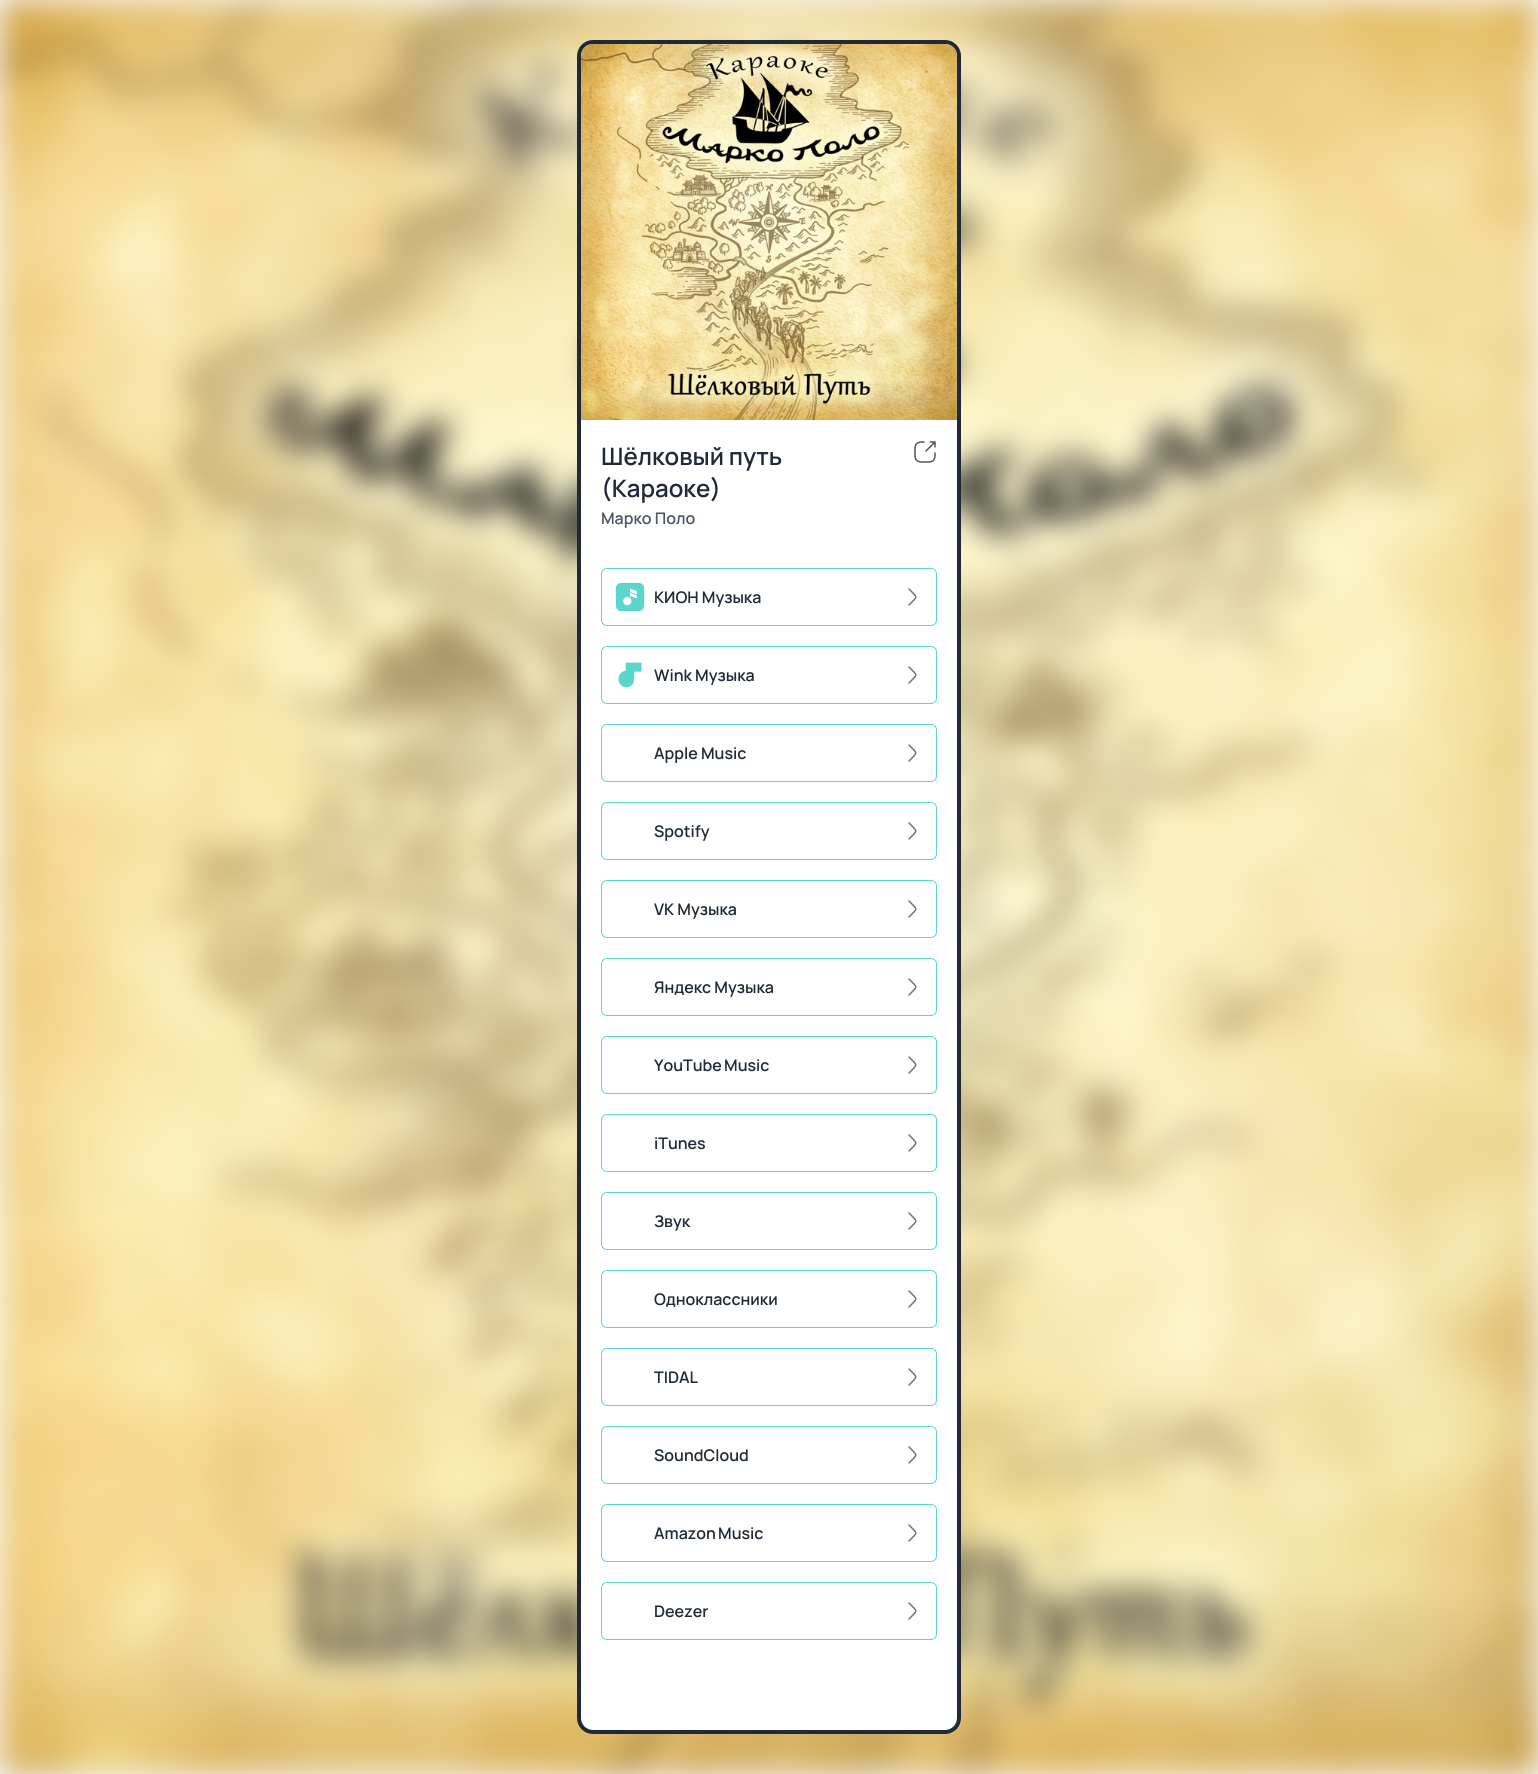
import math
import cairo


def use_color(cr, r, g, b):
  cr.set_source_rgb(r / 255, g / 255, b / 255)

def text(cr, x, y, s, family, size, color, bold=False, italic=False):
  cr.select_font_face(family, cairo.FONT_SLANT_ITALIC if italic else cairo.FONT_SLANT_NORMAL, cairo.FONT_WEIGHT_BOLD if bold else cairo.FONT_WEIGHT_NORMAL)
  cr.set_font_size(size)
  use_color(cr, *color)
  cr.move_to(x, y)
  cr.show_text(s)

def spaced_text(cr, x, y, s, letter, word):
  cr.move_to(x, y)
  for ch in s:
    cr.show_text(ch)
    cr.rel_move_to(letter + word * (ch == ' '), 0)

def round_rect(cr, x, y, w, h, r):
  cr.new_sub_path()
  for i, (u, v) in enumerate([(x + w - r, y + h - r), (x + r, y + h - r), (x + r, y + r), (x + w - r, y + r)]):
    cr.arc(u, v, r, i * math.pi / 2, (i + 1) * math.pi / 2)
  cr.close_path()

def picture(cr, path, x, y, w, h):
  cr.save()
  cr.set_source_surface(cairo.ImageSurface.create_from_png(path), x, y)
  cr.rectangle(x, y, w, h)
  cr.fill()
  cr.restore()

def draw(cr):
  use_color(cr, 248, 248, 248)
  cr.paint()
  picture(cr, "img_01.png", 0, 0, 1538, 1774)
  use_color(cr, 255, 255, 255)
  round_rect(cr, 579, 42, 380, 1690, 14)
  cr.fill_preserve()
  use_color(cr, 31, 41, 55)
  cr.set_line_width(4)
  cr.stroke()
  picture(cr, "img_02.png", 581, 44, 376, 376)
  picture(cr, "img_03.png", 914, 441, 22, 22)
  round_rect(cr, 601.5, 568.5, 335, 57, 5.5)
  use_color(cr, 90, 214, 204)
  cr.set_line_width(1)
  cr.stroke()
  picture(cr, "img_04.png", 615, 582, 30, 30)
  cr.new_path()
  cr.move_to(909, 605)
  cr.curve_to(918, 595.5, 918, 598.5, 909, 589)
  use_color(cr, 107, 114, 128)
  cr.set_line_width(1.5)
  cr.set_line_cap(cairo.LINE_CAP_ROUND)
  cr.set_line_join(cairo.LINE_JOIN_ROUND)
  cr.stroke()
  round_rect(cr, 601.5, 646.5, 335, 57, 5.5)
  use_color(cr, 90, 214, 204)
  cr.set_line_width(1)
  cr.set_line_cap(cairo.LINE_CAP_BUTT)
  cr.set_line_join(cairo.LINE_JOIN_MITER)
  cr.stroke()
  picture(cr, "img_05.png", 618, 662, 24, 26)
  cr.new_path()
  cr.move_to(909, 683)
  cr.curve_to(918, 673.5, 918, 676.5, 909, 667)
  use_color(cr, 107, 114, 128)
  cr.set_line_width(1.5)
  cr.set_line_cap(cairo.LINE_CAP_ROUND)
  cr.set_line_join(cairo.LINE_JOIN_ROUND)
  cr.stroke()
  round_rect(cr, 601.5, 724.5, 335, 57, 5.5)
  use_color(cr, 90, 214, 204)
  cr.set_line_width(1)
  cr.set_line_cap(cairo.LINE_CAP_BUTT)
  cr.set_line_join(cairo.LINE_JOIN_MITER)
  cr.stroke()
  cr.new_path()
  cr.move_to(909, 761)
  cr.curve_to(918, 751.5, 918, 754.5, 909, 745)
  use_color(cr, 107, 114, 128)
  cr.set_line_width(1.5)
  cr.set_line_cap(cairo.LINE_CAP_ROUND)
  cr.set_line_join(cairo.LINE_JOIN_ROUND)
  cr.stroke()
  round_rect(cr, 601.5, 802.5, 335, 57, 5.5)
  use_color(cr, 90, 214, 204)
  cr.set_line_width(1)
  cr.set_line_cap(cairo.LINE_CAP_BUTT)
  cr.set_line_join(cairo.LINE_JOIN_MITER)
  cr.stroke()
  cr.new_path()
  cr.move_to(909, 839)
  cr.curve_to(918, 829.5, 918, 832.5, 909, 823)
  use_color(cr, 107, 114, 128)
  cr.set_line_width(1.5)
  cr.set_line_cap(cairo.LINE_CAP_ROUND)
  cr.set_line_join(cairo.LINE_JOIN_ROUND)
  cr.stroke()
  round_rect(cr, 601.5, 880.5, 335, 57, 5.5)
  use_color(cr, 90, 214, 204)
  cr.set_line_width(1)
  cr.set_line_cap(cairo.LINE_CAP_BUTT)
  cr.set_line_join(cairo.LINE_JOIN_MITER)
  cr.stroke()
  cr.new_path()
  cr.move_to(909, 917)
  cr.curve_to(918, 907.5, 918, 910.5, 909, 901)
  use_color(cr, 107, 114, 128)
  cr.set_line_width(1.5)
  cr.set_line_cap(cairo.LINE_CAP_ROUND)
  cr.set_line_join(cairo.LINE_JOIN_ROUND)
  cr.stroke()
  round_rect(cr, 601.5, 958.5, 335, 57, 5.5)
  use_color(cr, 90, 214, 204)
  cr.set_line_width(1)
  cr.set_line_cap(cairo.LINE_CAP_BUTT)
  cr.set_line_join(cairo.LINE_JOIN_MITER)
  cr.stroke()
  cr.new_path()
  cr.move_to(909, 995)
  cr.curve_to(918, 985.5, 918, 988.5, 909, 979)
  use_color(cr, 107, 114, 128)
  cr.set_line_width(1.5)
  cr.set_line_cap(cairo.LINE_CAP_ROUND)
  cr.set_line_join(cairo.LINE_JOIN_ROUND)
  cr.stroke()
  round_rect(cr, 601.5, 1036.5, 335, 57, 5.5)
  use_color(cr, 90, 214, 204)
  cr.set_line_width(1)
  cr.set_line_cap(cairo.LINE_CAP_BUTT)
  cr.set_line_join(cairo.LINE_JOIN_MITER)
  cr.stroke()
  cr.new_path()
  cr.move_to(909, 1073)
  cr.curve_to(918, 1063.5, 918, 1066.5, 909, 1057)
  use_color(cr, 107, 114, 128)
  cr.set_line_width(1.5)
  cr.set_line_cap(cairo.LINE_CAP_ROUND)
  cr.set_line_join(cairo.LINE_JOIN_ROUND)
  cr.stroke()
  round_rect(cr, 601.5, 1114.5, 335, 57, 5.5)
  use_color(cr, 90, 214, 204)
  cr.set_line_width(1)
  cr.set_line_cap(cairo.LINE_CAP_BUTT)
  cr.set_line_join(cairo.LINE_JOIN_MITER)
  cr.stroke()
  cr.new_path()
  cr.move_to(909, 1151)
  cr.curve_to(918, 1141.5, 918, 1144.5, 909, 1135)
  use_color(cr, 107, 114, 128)
  cr.set_line_width(1.5)
  cr.set_line_cap(cairo.LINE_CAP_ROUND)
  cr.set_line_join(cairo.LINE_JOIN_ROUND)
  cr.stroke()
  round_rect(cr, 601.5, 1192.5, 335, 57, 5.5)
  use_color(cr, 90, 214, 204)
  cr.set_line_width(1)
  cr.set_line_cap(cairo.LINE_CAP_BUTT)
  cr.set_line_join(cairo.LINE_JOIN_MITER)
  cr.stroke()
  cr.new_path()
  cr.move_to(909, 1229)
  cr.curve_to(918, 1219.5, 918, 1222.5, 909, 1213)
  use_color(cr, 107, 114, 128)
  cr.set_line_width(1.5)
  cr.set_line_cap(cairo.LINE_CAP_ROUND)
  cr.set_line_join(cairo.LINE_JOIN_ROUND)
  cr.stroke()
  round_rect(cr, 601.5, 1270.5, 335, 57, 5.5)
  use_color(cr, 90, 214, 204)
  cr.set_line_width(1)
  cr.set_line_cap(cairo.LINE_CAP_BUTT)
  cr.set_line_join(cairo.LINE_JOIN_MITER)
  cr.stroke()
  cr.new_path()
  cr.move_to(909, 1307)
  cr.curve_to(918, 1297.5, 918, 1300.5, 909, 1291)
  use_color(cr, 107, 114, 128)
  cr.set_line_width(1.5)
  cr.set_line_cap(cairo.LINE_CAP_ROUND)
  cr.set_line_join(cairo.LINE_JOIN_ROUND)
  cr.stroke()
  round_rect(cr, 601.5, 1348.5, 335, 57, 5.5)
  use_color(cr, 90, 214, 204)
  cr.set_line_width(1)
  cr.set_line_cap(cairo.LINE_CAP_BUTT)
  cr.set_line_join(cairo.LINE_JOIN_MITER)
  cr.stroke()
  cr.new_path()
  cr.move_to(909, 1385)
  cr.curve_to(918, 1375.5, 918, 1378.5, 909, 1369)
  use_color(cr, 107, 114, 128)
  cr.set_line_width(1.5)
  cr.set_line_cap(cairo.LINE_CAP_ROUND)
  cr.set_line_join(cairo.LINE_JOIN_ROUND)
  cr.stroke()
  round_rect(cr, 601.5, 1426.5, 335, 57, 5.5)
  use_color(cr, 90, 214, 204)
  cr.set_line_width(1)
  cr.set_line_cap(cairo.LINE_CAP_BUTT)
  cr.set_line_join(cairo.LINE_JOIN_MITER)
  cr.stroke()
  cr.new_path()
  cr.move_to(909, 1463)
  cr.curve_to(918, 1453.5, 918, 1456.5, 909, 1447)
  use_color(cr, 107, 114, 128)
  cr.set_line_width(1.5)
  cr.set_line_cap(cairo.LINE_CAP_ROUND)
  cr.set_line_join(cairo.LINE_JOIN_ROUND)
  cr.stroke()
  round_rect(cr, 601.5, 1504.5, 335, 57, 5.5)
  use_color(cr, 90, 214, 204)
  cr.set_line_width(1)
  cr.set_line_cap(cairo.LINE_CAP_BUTT)
  cr.set_line_join(cairo.LINE_JOIN_MITER)
  cr.stroke()
  cr.new_path()
  cr.move_to(909, 1541)
  cr.curve_to(918, 1531.5, 918, 1534.5, 909, 1525)
  use_color(cr, 107, 114, 128)
  cr.set_line_width(1.5)
  cr.set_line_cap(cairo.LINE_CAP_ROUND)
  cr.set_line_join(cairo.LINE_JOIN_ROUND)
  cr.stroke()
  round_rect(cr, 601.5, 1582.5, 335, 57, 5.5)
  use_color(cr, 90, 214, 204)
  cr.set_line_width(1)
  cr.set_line_cap(cairo.LINE_CAP_BUTT)
  cr.set_line_join(cairo.LINE_JOIN_MITER)
  cr.stroke()
  cr.new_path()
  cr.move_to(909, 1619)
  cr.curve_to(918, 1609.5, 918, 1612.5, 909, 1603)
  use_color(cr, 107, 114, 128)
  cr.set_line_width(1.5)
  cr.set_line_cap(cairo.LINE_CAP_ROUND)
  cr.set_line_join(cairo.LINE_JOIN_ROUND)
  cr.stroke()
  text(cr, 601, 465, "Шёлковый путь", "Manrope SemiBold", 24, (31, 41, 55))
  text(cr, 601, 497, "(Караоке)", "Manrope SemiBold", 24, (31, 41, 55))
  text(cr, 601, 524, "Марко Поло", "Manrope SemiBold", 16, (75, 85, 99))
  text(cr, 654, 603, "КИОН Музыка", "Manrope SemiBold", 16, (31, 41, 55))
  text(cr, 654, 681, "Wink Музыка", "Manrope SemiBold", 16, (31, 41, 55))
  text(cr, 654, 759, "Apple Music", "Manrope SemiBold", 16, (31, 41, 55))
  text(cr, 654, 837, "Spotify", "Manrope SemiBold", 16, (31, 41, 55))
  text(cr, 654, 915, "VK Музыка", "Manrope SemiBold", 16, (31, 41, 55))
  text(cr, 654, 993, "Яндекс Музыка", "Manrope SemiBold", 16, (31, 41, 55))
  spaced_text(cr, 654, 1071, "YouTube Music", 0, -1)
  text(cr, 654, 1149, "iTunes", "Manrope SemiBold", 16, (31, 41, 55))
  text(cr, 654, 1227, "Звук", "Manrope SemiBold", 16, (31, 41, 55))
  text(cr, 654, 1305, "Одноклассники", "Manrope SemiBold", 16, (31, 41, 55))
  text(cr, 654, 1383, "TIDAL", "Manrope SemiBold", 16, (31, 41, 55))
  text(cr, 654, 1461, "SoundCloud", "Manrope SemiBold", 16, (31, 41, 55))
  spaced_text(cr, 654, 1539, "Amazon Music", 0, -1)
  text(cr, 654, 1617, "Deezer", "Manrope SemiBold", 16, (31, 41, 55))


surface = cairo.ImageSurface(cairo.FORMAT_RGB24, 1538, 1774)
cr = cairo.Context(surface)
options = cairo.FontOptions()
options.set_hint_metrics(cairo.HINT_METRICS_OFF)
options.set_hint_style(cairo.HINT_STYLE_NONE)
cr.set_font_options(options)
cr.set_miter_limit(4)
draw(cr)
surface.write_to_png("out.png")
